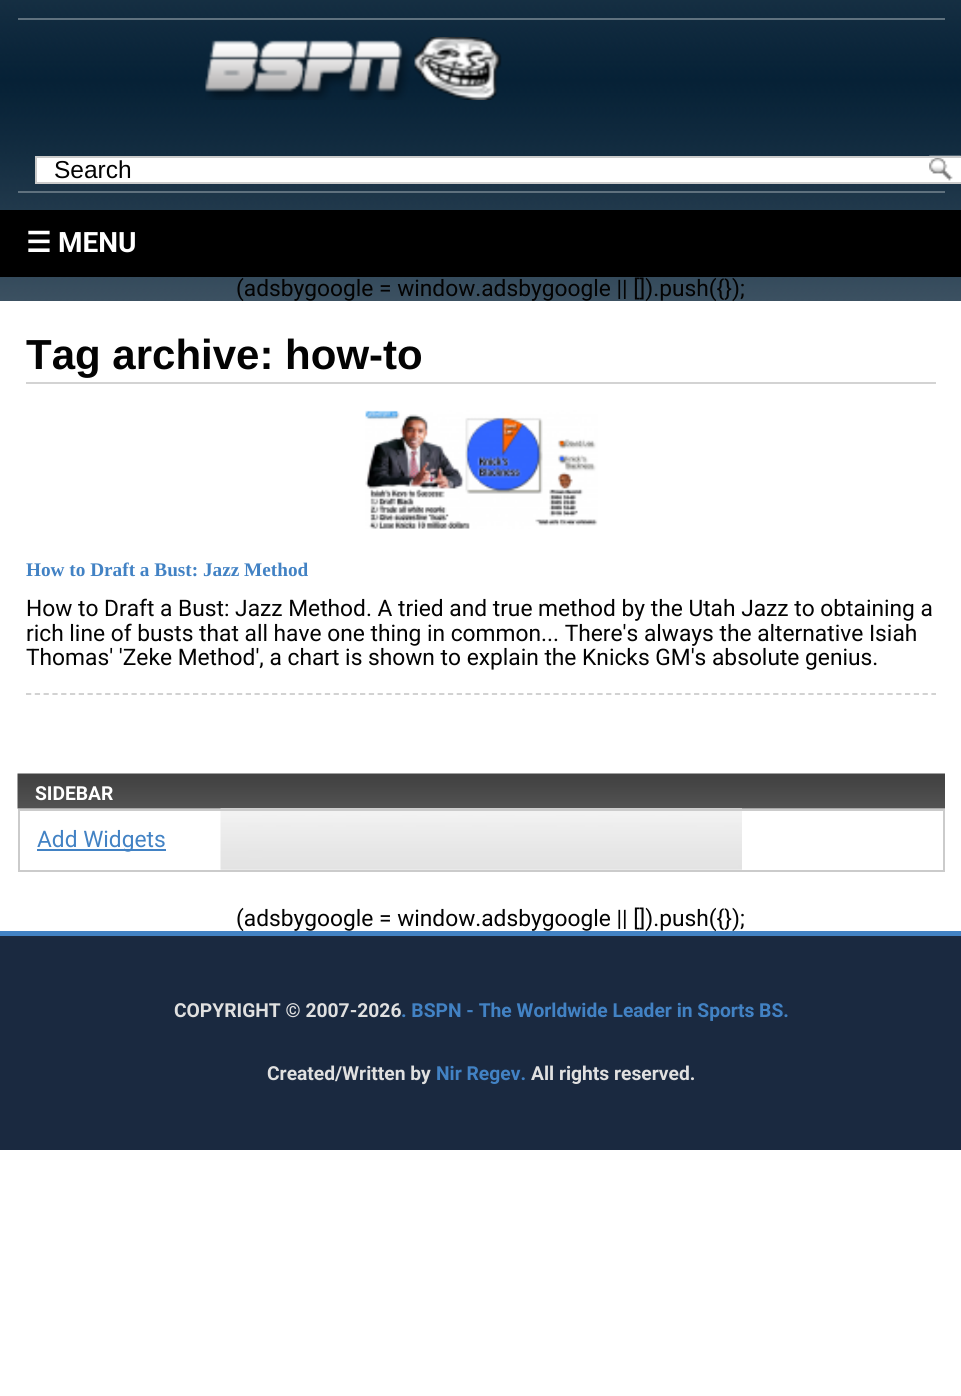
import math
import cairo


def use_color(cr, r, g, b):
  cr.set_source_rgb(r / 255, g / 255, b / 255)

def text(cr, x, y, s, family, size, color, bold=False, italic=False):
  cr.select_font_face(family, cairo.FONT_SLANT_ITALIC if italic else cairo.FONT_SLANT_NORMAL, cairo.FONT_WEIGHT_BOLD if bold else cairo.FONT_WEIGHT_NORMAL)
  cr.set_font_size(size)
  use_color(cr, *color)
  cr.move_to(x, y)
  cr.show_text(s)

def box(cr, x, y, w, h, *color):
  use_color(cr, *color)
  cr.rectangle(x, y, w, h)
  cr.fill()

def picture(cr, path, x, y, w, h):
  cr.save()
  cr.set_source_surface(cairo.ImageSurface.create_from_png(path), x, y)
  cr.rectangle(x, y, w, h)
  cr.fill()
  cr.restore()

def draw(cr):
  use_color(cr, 255, 255, 255)
  cr.paint()
  picture(cr, "img_01.png", 0, 0, 961, 301)
  box(cr, 18, 18, 927, 2, 95, 113, 126)
  picture(cr, "img_02.png", 205, 37, 297, 63)
  box(cr, 37, 158, 924, 24, 255, 255, 255)
  picture(cr, "img_03.png", 929, 155, 32, 26)
  cr.rectangle(36, 157, 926, 26)
  use_color(cr, 203, 203, 203)
  cr.stroke()
  box(cr, 18, 191, 927, 2, 95, 113, 126)
  box(cr, 0, 210, 961, 67, 0, 0, 0)
  box(cr, 26, 382, 910, 2, 211, 211, 211)
  picture(cr, "img_04.png", 365, 410, 233, 119)
  cr.new_path()
  cr.move_to(26, 694)
  cr.line_to(936, 694)
  use_color(cr, 205, 205, 205)
  cr.set_line_width(1.8)
  cr.set_dash([5.25, 3.54])
  cr.stroke()
  picture(cr, "img_05.png", 17, 773, 928, 36)
  picture(cr, "img_06.png", 220, 808, 522, 62)
  cr.rectangle(19, 810, 925, 61)
  use_color(cr, 203, 203, 203)
  cr.set_line_width(2)
  cr.set_dash([])
  cr.stroke()
  box(cr, 37, 849, 129, 2, 66, 130, 196)
  box(cr, 0, 936, 961, 214, 26, 41, 64)
  text(cr, 54, 178, "Search", "Liberation Sans", 24.5, (3, 3, 3))
  text(cr, 26, 252, "☰", "DejaVu Sans", 28, (255, 255, 255), bold=True)
  text(cr, 58, 252, "MENU", "Roboto", 28, (255, 255, 255), bold=True)
  text(cr, 236, 296, "(adsbygoogle = window.adsbygoogle || []).push({});", "Roboto", 22.75, (3, 3, 3))
  box(cr, 242, 301, 491, 1, 255, 255, 255)
  text(cr, 26, 369, "Tag archive: how-to", "Liberation Sans", 42, (3, 3, 3), bold=True)
  text(cr, 26, 576, "How to Draft a Bust: Jazz Method", "Liberation Serif", 19.25, (66, 130, 196), bold=True)
  text(cr, 26, 616, "How to Draft a Bust: Jazz Method. A tried and true method by the Utah Jazz to obtaining a", "Roboto", 22.75, (3, 3, 3))
  text(cr, 26, 641, "rich line of busts that all have one thing in common... There's always the alternative Isiah", "Roboto", 22.75, (3, 3, 3))
  text(cr, 26, 665, "Thomas' 'Zeke Method', a chart is shown to explain the Knicks GM's absolute genius.", "Roboto", 22.75, (3, 3, 3))
  text(cr, 35, 800, "SIDEBAR", "Roboto", 19.25, (255, 255, 255), bold=True)
  text(cr, 37, 847, "Add Widgets", "Roboto", 22.75, (66, 130, 196))
  text(cr, 236, 926, "(adsbygoogle = window.adsbygoogle || []).push({});", "Roboto", 22.75, (3, 3, 3))
  box(cr, 0, 931, 961, 5, 66, 130, 196)
  text(cr, 174, 1017, "COPYRIGHT © 2007-2026", "Roboto", 19.25, (224, 224, 224), bold=True)
  text(cr, 401, 1017, ". BSPN - The Worldwide Leader in Sports BS.", "Roboto", 19.25, (66, 130, 196), bold=True)
  text(cr, 267, 1080, "Created/Written by", "Roboto", 19.25, (224, 224, 224), bold=True)
  text(cr, 436, 1080, "Nir Regev.", "Roboto", 19.25, (66, 130, 196), bold=True)
  text(cr, 531, 1080, "All rights reserved.", "Roboto", 19.25, (224, 224, 224), bold=True)


surface = cairo.ImageSurface(cairo.FORMAT_RGB24, 961, 1396)
cr = cairo.Context(surface)
options = cairo.FontOptions()
options.set_hint_metrics(cairo.HINT_METRICS_OFF)
options.set_hint_style(cairo.HINT_STYLE_NONE)
cr.set_font_options(options)
cr.set_miter_limit(4)
draw(cr)
surface.write_to_png("out.png")
